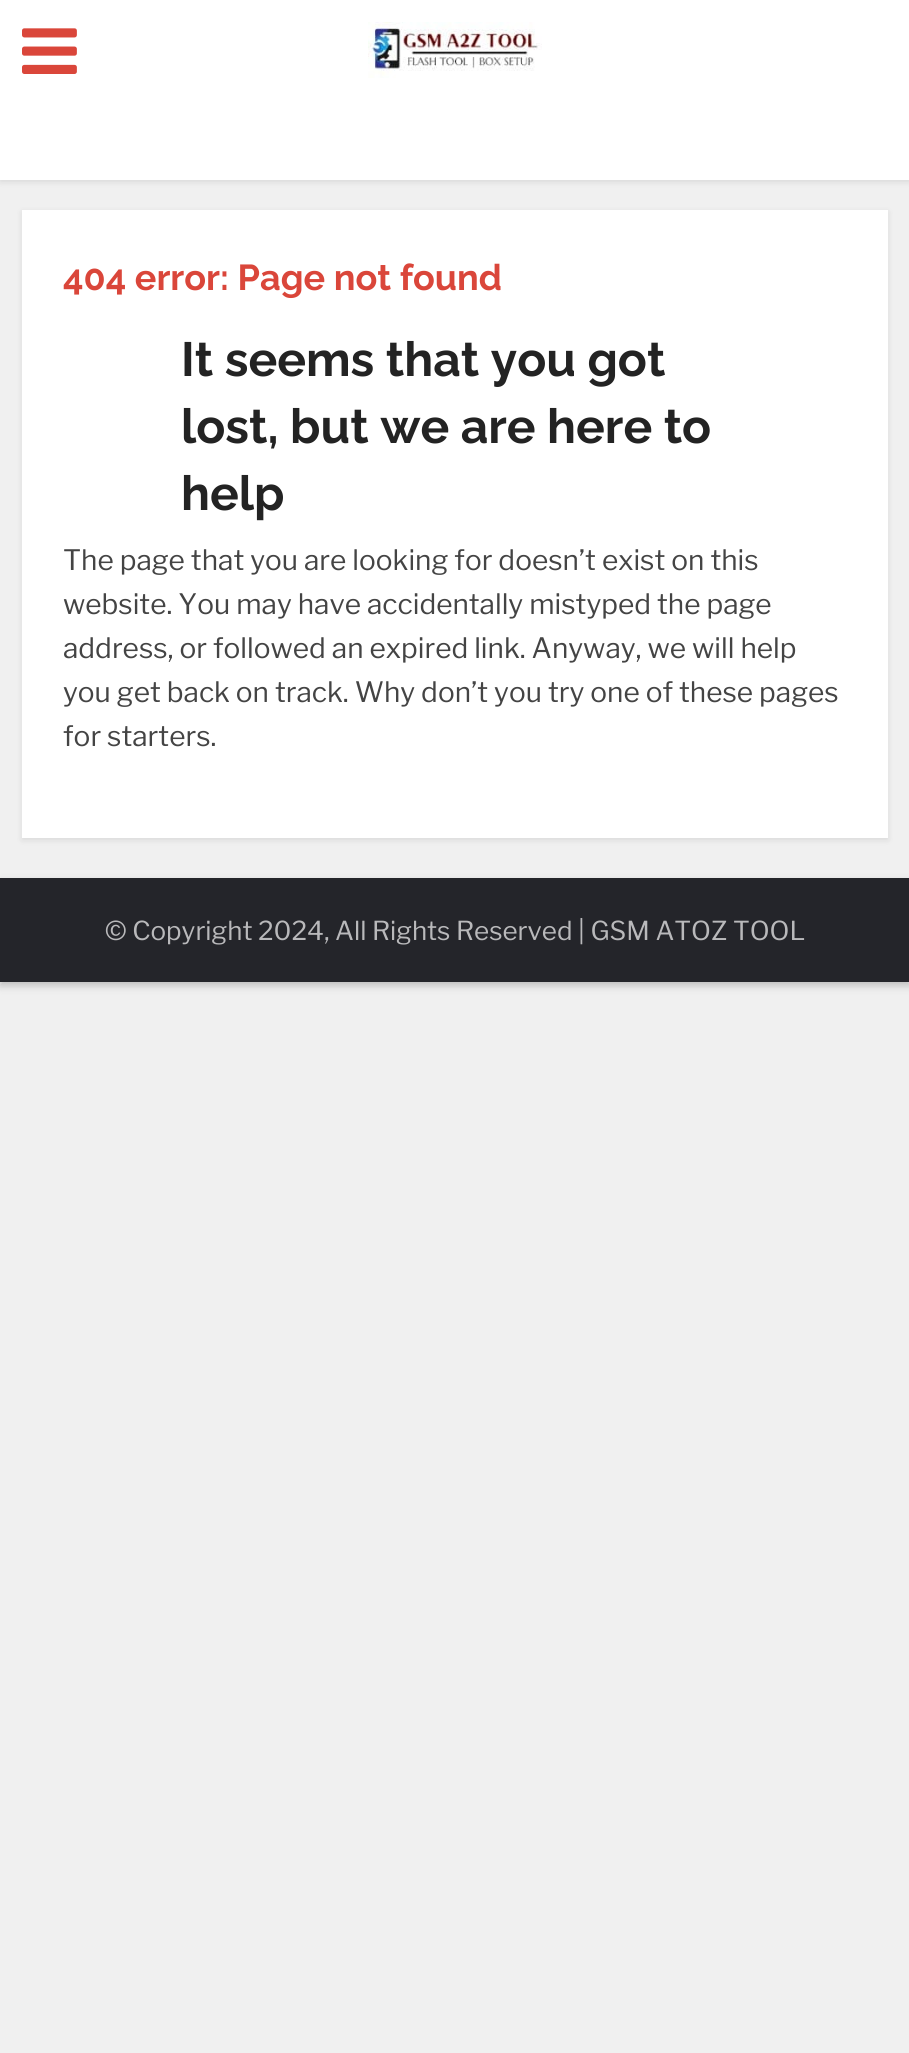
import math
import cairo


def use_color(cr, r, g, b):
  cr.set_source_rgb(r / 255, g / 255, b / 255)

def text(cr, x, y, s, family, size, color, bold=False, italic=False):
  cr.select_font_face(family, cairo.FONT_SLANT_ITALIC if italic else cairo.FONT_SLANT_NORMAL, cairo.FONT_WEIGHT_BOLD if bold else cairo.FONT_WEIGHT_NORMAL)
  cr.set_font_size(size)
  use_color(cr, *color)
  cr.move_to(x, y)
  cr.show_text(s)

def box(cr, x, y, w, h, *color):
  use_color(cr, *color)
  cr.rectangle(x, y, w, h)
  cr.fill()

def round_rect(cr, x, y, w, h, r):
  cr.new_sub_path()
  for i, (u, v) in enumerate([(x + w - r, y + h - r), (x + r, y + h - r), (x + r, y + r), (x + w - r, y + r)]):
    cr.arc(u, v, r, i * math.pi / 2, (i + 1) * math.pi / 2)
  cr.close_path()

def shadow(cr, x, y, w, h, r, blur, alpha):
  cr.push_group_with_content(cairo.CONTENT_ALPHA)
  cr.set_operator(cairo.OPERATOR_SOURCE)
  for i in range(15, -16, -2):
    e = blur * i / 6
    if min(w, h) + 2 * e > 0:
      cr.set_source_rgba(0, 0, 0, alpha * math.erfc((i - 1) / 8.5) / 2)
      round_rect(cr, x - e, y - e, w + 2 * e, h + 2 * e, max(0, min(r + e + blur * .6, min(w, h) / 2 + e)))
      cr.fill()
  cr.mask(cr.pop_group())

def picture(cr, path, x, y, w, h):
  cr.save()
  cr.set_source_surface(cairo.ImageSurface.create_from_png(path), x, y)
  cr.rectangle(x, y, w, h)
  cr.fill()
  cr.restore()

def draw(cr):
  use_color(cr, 240, 240, 240)
  cr.paint()
  use_color(cr, 0, 0, 0)
  shadow(cr, 0, 2, 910, 180, 0, 3, 0.1)
  box(cr, 0, 0, 909, 180, 255, 255, 255)
  picture(cr, "img_01.png", 22, 28, 55, 46)
  picture(cr, "img_02.png", 368, 22, 174, 56)
  use_color(cr, 0, 0, 0)
  shadow(cr, 22, 212, 866, 628, 0, 3, 0.1)
  box(cr, 22, 210, 866, 628, 255, 255, 255)
  use_color(cr, 0, 0, 0)
  shadow(cr, 0, 882, 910, 104, 0, 4, 0.2)
  box(cr, 0, 878, 909, 104, 36, 37, 42)
  text(cr, 63, 290, "404 error: Page not found", "Raleway Thin", 36, (218, 70, 58))
  text(cr, 181, 376, "It seems that you got", "Raleway Thin", 48, (35, 35, 35))
  text(cr, 181, 443, "lost, but we are here to", "Raleway Thin", 48, (35, 35, 35))
  text(cr, 181, 510, "help", "Raleway Thin", 48, (35, 35, 35))
  text(cr, 63, 570, "The page that you are looking for doesn’t exist on this", "Libre Franklin Thin", 28, (68, 68, 68))
  text(cr, 63, 614, "website. You may have accidentally mistyped the page", "Libre Franklin Thin", 28, (68, 68, 68))
  text(cr, 63, 658, "address, or followed an expired link. Anyway, we will help", "Libre Franklin Thin", 28, (68, 68, 68))
  text(cr, 63, 702, "you get back on track. Why don’t you try one of these pages", "Libre Franklin Thin", 28, (68, 68, 68))
  text(cr, 63, 746, "for starters.", "Libre Franklin Thin", 28, (68, 68, 68))
  text(cr, 105, 940, "© Copyright 2024, All Rights Reserved | GSM ATOZ TOOL", "Libre Franklin Thin", 26, (185, 185, 187))


surface = cairo.ImageSurface(cairo.FORMAT_RGB24, 909, 2053)
cr = cairo.Context(surface)
options = cairo.FontOptions()
options.set_hint_metrics(cairo.HINT_METRICS_OFF)
options.set_hint_style(cairo.HINT_STYLE_NONE)
cr.set_font_options(options)
cr.set_miter_limit(4)
draw(cr)
surface.write_to_png("out.png")
